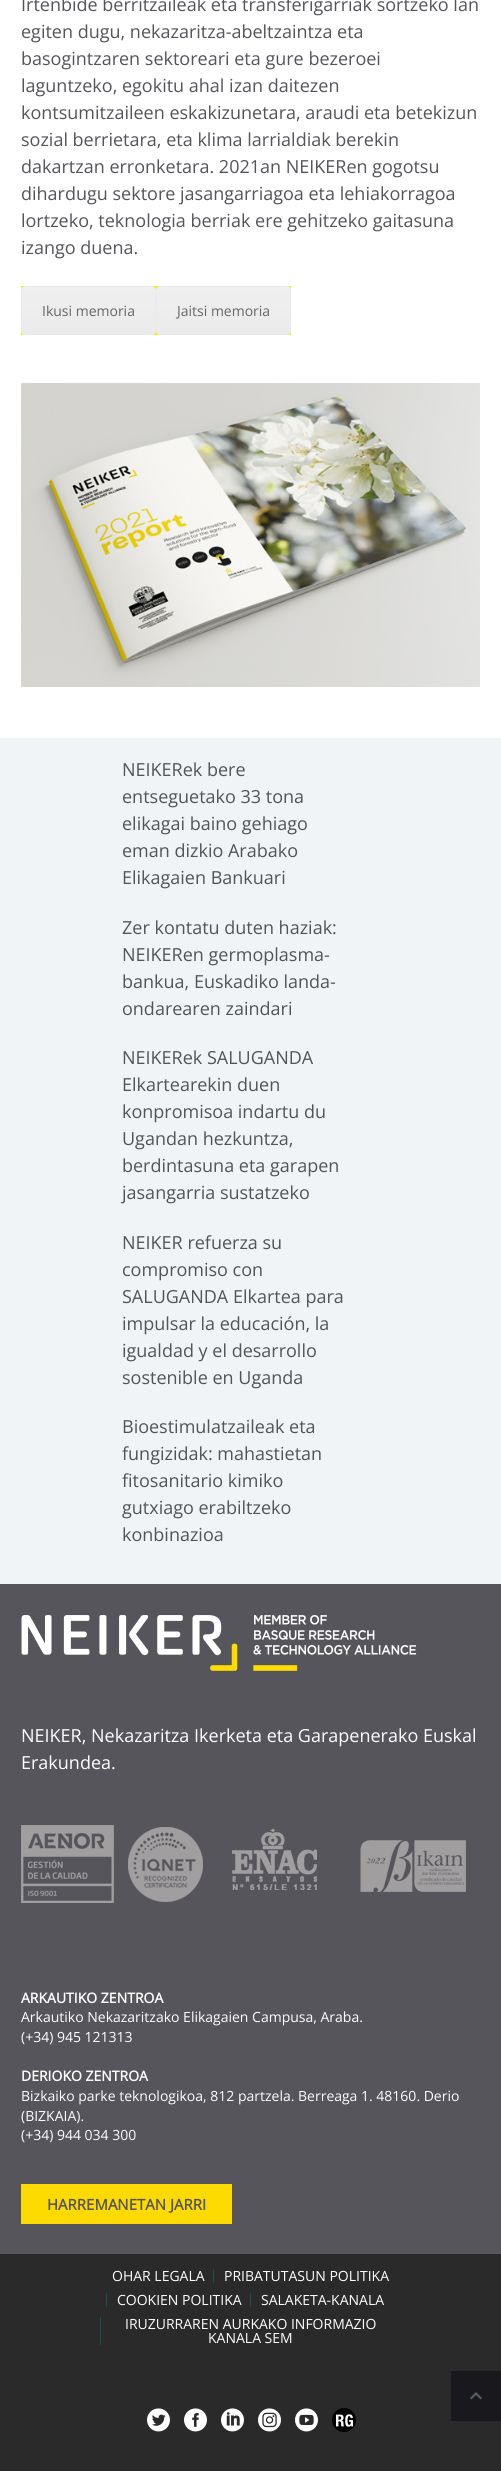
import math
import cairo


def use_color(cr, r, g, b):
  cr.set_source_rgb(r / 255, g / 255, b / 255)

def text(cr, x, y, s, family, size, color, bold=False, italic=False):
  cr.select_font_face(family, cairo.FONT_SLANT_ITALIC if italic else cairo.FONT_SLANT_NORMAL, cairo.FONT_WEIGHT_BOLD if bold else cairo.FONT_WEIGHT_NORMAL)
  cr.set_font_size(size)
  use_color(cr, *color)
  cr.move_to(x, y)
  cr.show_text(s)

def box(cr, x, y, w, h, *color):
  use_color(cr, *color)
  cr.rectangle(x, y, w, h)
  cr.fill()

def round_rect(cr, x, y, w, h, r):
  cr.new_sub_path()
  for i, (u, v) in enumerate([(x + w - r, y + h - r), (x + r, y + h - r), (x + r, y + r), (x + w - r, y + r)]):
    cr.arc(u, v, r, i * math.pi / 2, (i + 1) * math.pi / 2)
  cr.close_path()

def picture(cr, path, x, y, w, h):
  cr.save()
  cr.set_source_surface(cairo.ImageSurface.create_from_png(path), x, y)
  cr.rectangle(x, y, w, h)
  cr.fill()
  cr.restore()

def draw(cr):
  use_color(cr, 240, 244, 247)
  cr.paint()
  box(cr, 0, 0, 501, 738, 255, 255, 255)
  box(cr, 21, 286, 270, 49, 238, 238, 34)
  use_color(cr, 235, 235, 235)
  round_rect(cr, 21, 286, 135, 49, 5)
  cr.fill()
  cr.save()
  round_rect(cr, 21, 286, 135, 49, 5)
  cr.clip()
  gradient = cairo.LinearGradient(89, 287, 89, 334)
  gradient.add_color_stop_rgba(0, 1, 1, 1, 0.2)
  gradient.add_color_stop_rgba(1, 1, 1, 1, 0.01)
  cr.set_source(gradient)
  cr.rectangle(21, 287, 135, 44)
  cr.fill()
  cr.restore()
  round_rect(cr, 21.5, 286.5, 134, 48, 4.5)
  cr.set_line_width(1)
  cr.stroke()
  round_rect(cr, 156, 286, 135, 49, 5)
  cr.fill()
  cr.save()
  round_rect(cr, 156, 286, 135, 49, 5)
  cr.clip()
  gradient = cairo.LinearGradient(224, 287, 224, 334)
  gradient.add_color_stop_rgba(0, 1, 1, 1, 0.2)
  gradient.add_color_stop_rgba(1, 1, 1, 1, 0.01)
  cr.set_source(gradient)
  cr.rectangle(156, 287, 135, 44)
  cr.fill()
  cr.restore()
  round_rect(cr, 156.5, 286.5, 134, 48, 4.5)
  cr.stroke()
  picture(cr, "img_01.png", 21, 383, 459, 304)
  box(cr, 0, 1584, 501, 670, 86, 85, 91)
  picture(cr, "img_02.png", 21, 1615, 396, 56)
  picture(cr, "img_03.png", 21, 1825, 445, 78)
  box(cr, 21, 2184, 211, 40, 254, 219, 0)
  box(cr, 0, 2254, 501, 217, 42, 42, 42)
  box(cr, 213, 2269, 1, 14, 27, 78, 80)
  box(cr, 106, 2293, 1, 14, 27, 78, 80)
  box(cr, 250, 2293, 1, 14, 27, 78, 80)
  box(cr, 100, 2317, 1, 28, 27, 78, 80)
  picture(cr, "img_04.png", 147, 2408, 23, 24)
  picture(cr, "img_05.png", 184, 2408, 23, 24)
  picture(cr, "img_06.png", 221, 2408, 23, 24)
  picture(cr, "img_07.png", 258, 2408, 23, 24)
  picture(cr, "img_08.png", 295, 2408, 23, 24)
  use_color(cr, 0, 0, 0)
  cr.arc(344, 2420, 12, 0, 2 * math.pi)
  cr.fill()
  picture(cr, "img_09.png", 336, 2414, 17, 13)
  box(cr, 451, 2371, 50, 50, 24, 24, 29)
  picture(cr, "img_10.png", 470, 2392, 12, 8)
  text(cr, 21, 11, "Irtenbide berritzaileak eta transferigarriak sortzeko lan", "Open Sans", 18, (84, 84, 91))
  text(cr, 21, 38, "egiten dugu, nekazaritza-abeltzaintza eta", "Open Sans", 18, (84, 84, 91))
  text(cr, 21, 65, "basogintzaren sektoreari eta gure bezeroei", "Open Sans", 18, (84, 84, 91))
  text(cr, 21, 92, "laguntzeko, egokitu ahal izan daitezen", "Open Sans", 18, (84, 84, 91))
  text(cr, 21, 119, "kontsumitzaileen eskakizunetara, araudi eta betekizun", "Open Sans", 18, (84, 84, 91))
  text(cr, 21, 146, "sozial berrietara, eta klima larrialdiak berekin", "Open Sans", 18, (84, 84, 91))
  text(cr, 21, 173, "dakartzan erronketara. 2021an NEIKERen gogotsu", "Open Sans", 18, (84, 84, 91))
  text(cr, 21, 200, "dihardugu sektore jasangarriagoa eta lehiakorragoa", "Open Sans", 18, (84, 84, 91))
  text(cr, 21, 227, "lortzeko, teknologia berriak ere gehitzeko gaitasuna", "Open Sans", 18, (84, 84, 91))
  text(cr, 21, 254, "izango duena.", "Open Sans", 18, (84, 84, 91))
  text(cr, 42, 316, "Ikusi memoria", "Open Sans", 14, (102, 102, 102))
  text(cr, 177, 316, "Jaitsi memoria", "Open Sans", 14, (102, 102, 102))
  text(cr, 122, 776, "NEIKERek bere", "Open Sans", 18, (84, 84, 84))
  text(cr, 122, 803, "entseguetako 33 tona", "Open Sans", 18, (84, 84, 84))
  text(cr, 122, 830, "elikagai baino gehiago", "Open Sans", 18, (84, 84, 84))
  text(cr, 122, 857, "eman dizkio Arabako", "Open Sans", 18, (84, 84, 84))
  text(cr, 122, 884, "Elikagaien Bankuari", "Open Sans", 18, (84, 84, 84))
  text(cr, 122, 934, "Zer kontatu duten haziak:", "Open Sans", 18, (84, 84, 84))
  text(cr, 122, 961, "NEIKERen germoplasma-", "Open Sans", 18, (84, 84, 84))
  text(cr, 122, 988, "bankua, Euskadiko landa-", "Open Sans", 18, (84, 84, 84))
  text(cr, 122, 1015, "ondarearen zaindari", "Open Sans", 18, (84, 84, 84))
  text(cr, 122, 1064, "NEIKERek SALUGANDA", "Open Sans", 18, (84, 84, 84))
  text(cr, 122, 1091, "Elkartearekin duen", "Open Sans", 18, (84, 84, 84))
  text(cr, 122, 1118, "konpromisoa indartu du", "Open Sans", 18, (84, 84, 84))
  text(cr, 122, 1145, "Ugandan hezkuntza,", "Open Sans", 18, (84, 84, 84))
  text(cr, 122, 1172, "berdintasuna eta garapen", "Open Sans", 18, (84, 84, 84))
  text(cr, 122, 1199, "jasangarria sustatzeko", "Open Sans", 18, (84, 84, 84))
  text(cr, 122, 1249, "NEIKER refuerza su", "Open Sans", 18, (84, 84, 84))
  text(cr, 122, 1276, "compromiso con", "Open Sans", 18, (84, 84, 84))
  text(cr, 122, 1303, "SALUGANDA Elkartea para", "Open Sans", 18, (84, 84, 84))
  text(cr, 122, 1330, "impulsar la educación, la", "Open Sans", 18, (84, 84, 84))
  text(cr, 122, 1357, "igualdad y el desarrollo", "Open Sans", 18, (84, 84, 84))
  text(cr, 122, 1384, "sostenible en Uganda", "Open Sans", 18, (84, 84, 84))
  text(cr, 122, 1433, "Bioestimulatzaileak eta", "Open Sans", 18, (84, 84, 84))
  text(cr, 122, 1460, "fungizidak: mahastietan", "Open Sans", 18, (84, 84, 84))
  text(cr, 122, 1487, "fitosanitario kimiko", "Open Sans", 18, (84, 84, 84))
  text(cr, 122, 1514, "gutxiago erabiltzeko", "Open Sans", 18, (84, 84, 84))
  text(cr, 122, 1541, "konbinazioa", "Open Sans", 18, (84, 84, 84))
  text(cr, 21, 1742, "NEIKER, Nekazaritza Ikerketa eta Garapenerako Euskal", "Open Sans", 18, (255, 255, 255))
  text(cr, 21, 1769, "Erakundea.", "Open Sans", 18, (255, 255, 255))
  text(cr, 21, 2003, "ARKAUTIKO ZENTROA", "Open Sans", 14, (255, 255, 255), bold=True)
  text(cr, 21, 2022, "Arkautiko Nekazaritzako Elikagaien Campusa, Araba.", "Open Sans", 14, (255, 255, 255))
  text(cr, 21, 2042, "(+34) 945 121313", "Open Sans", 14, (255, 255, 255))
  text(cr, 21, 2081, "DERIOKO ZENTROA", "Open Sans", 14, (255, 255, 255), bold=True)
  text(cr, 21, 2101, "Bizkaiko parke teknologikoa, 812 partzela. Berreaga 1. 48160. Derio", "Open Sans", 14, (255, 255, 255))
  text(cr, 21, 2121, "(BIZKAIA).", "Open Sans", 14, (255, 255, 255))
  text(cr, 21, 2140, "(+34) 944 034 300", "Open Sans", 14, (255, 255, 255))
  text(cr, 47, 2210, "HARREMANETAN JARRI", "Open Sans", 15, (84, 84, 91), bold=True)
  text(cr, 112, 2281, "OHAR LEGALA", "Open Sans", 14, (255, 255, 255))
  text(cr, 224, 2281, "PRIBATUTASUN POLITIKA", "Open Sans", 14, (255, 255, 255))
  text(cr, 117, 2305, "COOKIEN POLITIKA", "Open Sans", 14, (255, 255, 255))
  text(cr, 261, 2305, "SALAKETA-KANALA", "Open Sans", 14, (255, 255, 255))
  text(cr, 125, 2329, "IRUZURRAREN AURKAKO INFORMAZIO", "Open Sans", 14, (255, 255, 255))
  text(cr, 208, 2343, "KANALA SEM", "Open Sans", 14, (255, 255, 255))


surface = cairo.ImageSurface(cairo.FORMAT_RGB24, 501, 2471)
cr = cairo.Context(surface)
options = cairo.FontOptions()
options.set_hint_metrics(cairo.HINT_METRICS_OFF)
options.set_hint_style(cairo.HINT_STYLE_NONE)
cr.set_font_options(options)
cr.set_miter_limit(4)
draw(cr)
surface.write_to_png("out.png")
